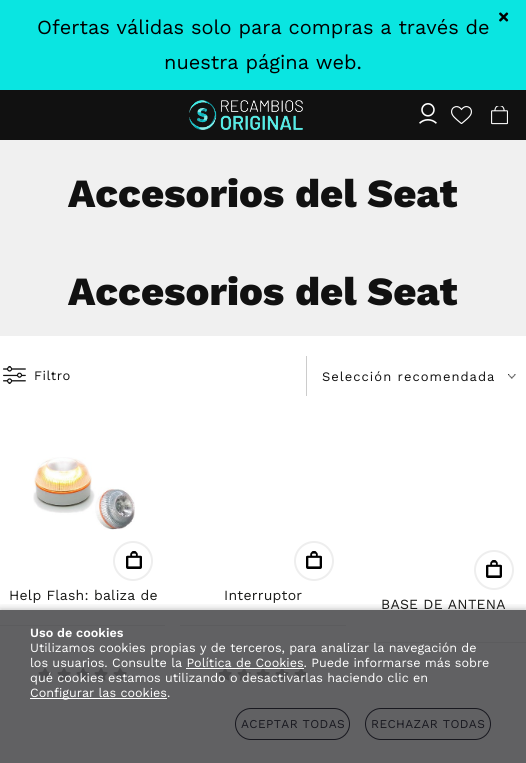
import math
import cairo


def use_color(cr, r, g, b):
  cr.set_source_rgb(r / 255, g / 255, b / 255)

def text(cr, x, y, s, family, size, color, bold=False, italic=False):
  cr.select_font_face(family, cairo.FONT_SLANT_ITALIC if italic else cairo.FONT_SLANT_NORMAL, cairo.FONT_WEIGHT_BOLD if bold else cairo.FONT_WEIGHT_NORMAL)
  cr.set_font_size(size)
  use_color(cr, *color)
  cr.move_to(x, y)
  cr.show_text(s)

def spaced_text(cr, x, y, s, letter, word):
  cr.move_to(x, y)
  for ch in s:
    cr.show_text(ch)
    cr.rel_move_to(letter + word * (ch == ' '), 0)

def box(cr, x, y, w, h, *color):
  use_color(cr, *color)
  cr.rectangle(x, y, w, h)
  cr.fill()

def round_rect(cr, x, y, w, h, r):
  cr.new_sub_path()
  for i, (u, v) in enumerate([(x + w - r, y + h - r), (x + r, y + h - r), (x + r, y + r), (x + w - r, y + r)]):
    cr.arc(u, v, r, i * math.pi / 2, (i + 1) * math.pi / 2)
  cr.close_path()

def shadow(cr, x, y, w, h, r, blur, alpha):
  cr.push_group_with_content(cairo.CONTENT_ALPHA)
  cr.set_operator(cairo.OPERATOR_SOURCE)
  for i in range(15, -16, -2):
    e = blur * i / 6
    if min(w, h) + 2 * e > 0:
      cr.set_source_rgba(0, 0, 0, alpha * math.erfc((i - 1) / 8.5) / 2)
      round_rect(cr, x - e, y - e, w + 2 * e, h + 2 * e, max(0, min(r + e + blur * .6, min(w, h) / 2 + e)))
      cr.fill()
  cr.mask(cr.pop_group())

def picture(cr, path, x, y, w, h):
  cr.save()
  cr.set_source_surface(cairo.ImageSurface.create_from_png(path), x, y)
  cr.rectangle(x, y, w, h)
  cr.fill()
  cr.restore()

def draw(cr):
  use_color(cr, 255, 255, 255)
  cr.paint()
  box(cr, 0, 0, 526, 90, 10, 229, 225)
  picture(cr, "img_01.png", 499, 12, 10, 10)
  box(cr, 0, 90, 526, 50, 17, 17, 17)
  picture(cr, "img_02.png", 189, 100, 114, 30)
  picture(cr, "img_03.png", 189, 100, 114, 30)
  picture(cr, "img_04.png", 419, 103, 18, 21)
  picture(cr, "img_05.png", 451, 106, 21, 18)
  picture(cr, "img_06.png", 491, 106, 17, 19)
  box(cr, 0, 140, 526, 196, 240, 240, 240)
  picture(cr, "img_07.png", 3, 366, 23, 18)
  picture(cr, "img_08.png", 508, 374, 8, 5)
  box(cr, 306, 356, 1, 40, 204, 204, 204)
  picture(cr, "img_09.png", 33, 457, 102, 73)
  cr.arc(133, 561, 19, 0, 2 * math.pi)
  use_color(cr, 238, 238, 238)
  cr.stroke()
  picture(cr, "img_10.png", 126, 551, 16, 18)
  box(cr, 0, 625, 165, 1, 204, 204, 204)
  picture(cr, "img_11.png", 38, 668, 14, 13)
  picture(cr, "img_11.png", 57, 668, 14, 13)
  picture(cr, "img_11.png", 76, 668, 14, 13)
  picture(cr, "img_11.png", 94, 668, 14, 13)
  picture(cr, "img_11.png", 113, 668, 14, 13)
  cr.arc(314, 561, 19, 0, 2 * math.pi)
  use_color(cr, 238, 238, 238)
  cr.stroke()
  picture(cr, "img_10.png", 306, 551, 16, 18)
  box(cr, 180, 625, 166, 1, 204, 204, 204)
  picture(cr, "img_12.png", 218, 669, 14, 12)
  picture(cr, "img_12.png", 237, 669, 14, 12)
  picture(cr, "img_12.png", 256, 669, 14, 12)
  picture(cr, "img_12.png", 275, 669, 14, 12)
  picture(cr, "img_12.png", 294, 669, 14, 12)
  cr.arc(494, 570, 19, 0, 2 * math.pi)
  use_color(cr, 238, 238, 238)
  cr.stroke()
  picture(cr, "img_10.png", 486, 560, 16, 18)
  box(cr, 361, 642, 165, 1, 204, 204, 204)
  cr.save()
  cr.rectangle(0, 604, 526, 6)
  cr.clip()
  use_color(cr, 0, 0, 0)
  shadow(cr, 0, 610, 526, 153, 0, 4, 0.3)
  cr.restore()
  cr.set_source_rgba(0.314, 0.314, 0.322, 0.9)
  cr.rectangle(0, 610, 526, 153)
  cr.fill()
  box(cr, 186, 668, 118, 1, 255, 255, 255)
  box(cr, 30, 698, 137, 1, 255, 255, 255)
  round_rect(cr, 235.5, 708.5, 114, 31, 15.5)
  use_color(cr, 24, 24, 31)
  cr.set_line_width(1)
  cr.stroke()
  round_rect(cr, 365.5, 708.5, 125, 31, 15.5)
  cr.stroke()
  text(cr, 37, 34, "Ofertas válidas solo para compras a través de", "Work Sans", 20, (0, 0, 0))
  text(cr, 164, 69, "nuestra página web.", "Work Sans", 20, (0, 0, 0))
  text(cr, 68, 207, "Accesorios del Seat", "Work Sans ExtraBold", 40, (17, 17, 17))
  text(cr, 68, 305, "Accesorios del Seat", "Work Sans ExtraBold", 40, (17, 17, 17))
  cr.select_font_face("Work Sans")
  cr.set_font_size(13)
  spaced_text(cr, 34, 380, "Filtro", 0.5, 0)
  spaced_text(cr, 322, 381, "Selección recomendada", 1, 0)
  cr.set_font_size(14)
  use_color(cr, 25, 25, 23)
  spaced_text(cr, 9, 600, "Help Flash: baliza de", 0.25, 0)
  spaced_text(cr, 224, 600, "Interruptor", 0.25, 0)
  spaced_text(cr, 381, 609, "BASE DE ANTENA", 0.25, 0)
  text(cr, 30, 637, "Uso de cookies", "Work Sans SemiBold", 12.6, (255, 255, 255))
  text(cr, 30, 652, "Utilizamos cookies propias y de terceros, para analizar la navegación de", "Work Sans", 12.6, (255, 255, 255))
  text(cr, 30, 667, "los usuarios. Consulte la Política de Cookies. Puede informarse más sobre", "Work Sans", 12.6, (255, 255, 255))
  text(cr, 30, 682, "qué cookies estamos utilizando o desactivarlas haciendo clic en", "Work Sans", 12.6, (255, 255, 255))
  text(cr, 30, 697, "Configurar las cookies.", "Work Sans", 12.6, (255, 255, 255))
  cr.set_font_size(12)
  use_color(cr, 24, 24, 31)
  spaced_text(cr, 241, 728, "ACEPTAR TODAS", 0.4, 0)
  spaced_text(cr, 371, 728, "RECHAZAR TODAS", 0.4, 0)


surface = cairo.ImageSurface(cairo.FORMAT_RGB24, 526, 763)
cr = cairo.Context(surface)
options = cairo.FontOptions()
options.set_hint_metrics(cairo.HINT_METRICS_OFF)
options.set_hint_style(cairo.HINT_STYLE_NONE)
cr.set_font_options(options)
cr.set_miter_limit(4)
draw(cr)
surface.write_to_png("out.png")
